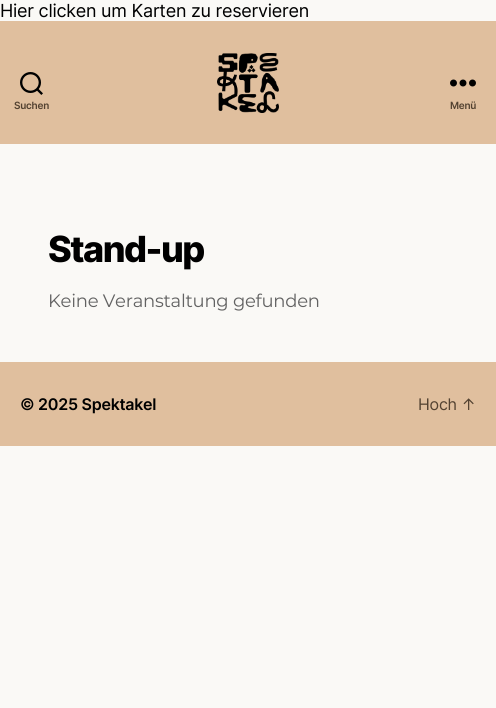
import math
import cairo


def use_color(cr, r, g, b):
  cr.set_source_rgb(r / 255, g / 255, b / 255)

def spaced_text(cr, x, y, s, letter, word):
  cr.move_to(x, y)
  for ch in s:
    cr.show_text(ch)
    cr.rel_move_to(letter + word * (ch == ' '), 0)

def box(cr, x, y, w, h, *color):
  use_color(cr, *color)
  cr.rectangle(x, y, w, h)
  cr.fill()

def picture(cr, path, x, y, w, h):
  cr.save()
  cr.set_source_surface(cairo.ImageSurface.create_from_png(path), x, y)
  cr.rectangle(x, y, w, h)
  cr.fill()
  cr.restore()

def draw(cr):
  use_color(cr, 250, 249, 246)
  cr.paint()
  box(cr, 0, 21, 496, 123, 224, 191, 158)
  picture(cr, "img_01.png", 20, 72, 23, 23)
  picture(cr, "img_02.png", 217, 53, 62, 60)
  picture(cr, "img_03.png", 450, 79, 26, 8)
  box(cr, 0, 362, 496, 84, 224, 191, 158)
  cr.select_font_face("Inter")
  cr.set_font_size(18)
  use_color(cr, 0, 0, 0)
  spaced_text(cr, 0, 17, "Hier clicken um Karten zu reservieren", -0.25, 0)
  cr.select_font_face("Inter SemiBold")
  cr.set_font_size(10)
  use_color(cr, 83, 66, 49)
  spaced_text(cr, 14, 109, "Suchen", -0.25, 0)
  spaced_text(cr, 450, 109, "Menü", -0.25, 0)
  cr.select_font_face("Inter ExtraBold")
  cr.set_font_size(36)
  use_color(cr, 0, 0, 0)
  spaced_text(cr, 48, 262, "Stand-up", -1.5, 0)
  cr.select_font_face("Montserrat")
  cr.set_font_size(18)
  use_color(cr, 98, 98, 98)
  spaced_text(cr, 48, 307, "Keine Veranstaltung gefunden", -0.25, 0)
  cr.select_font_face("Inter SemiBold")
  cr.set_font_size(16)
  use_color(cr, 0, 0, 0)
  spaced_text(cr, 20, 410, "© 2025 Spektakel", -0.25, 0)
  cr.select_font_face("Inter")
  use_color(cr, 83, 66, 49)
  spaced_text(cr, 418, 410, "Hoch ↑", -0.25, 0)


surface = cairo.ImageSurface(cairo.FORMAT_RGB24, 496, 708)
cr = cairo.Context(surface)
options = cairo.FontOptions()
options.set_hint_metrics(cairo.HINT_METRICS_OFF)
options.set_hint_style(cairo.HINT_STYLE_NONE)
cr.set_font_options(options)
cr.set_miter_limit(4)
draw(cr)
surface.write_to_png("out.png")
